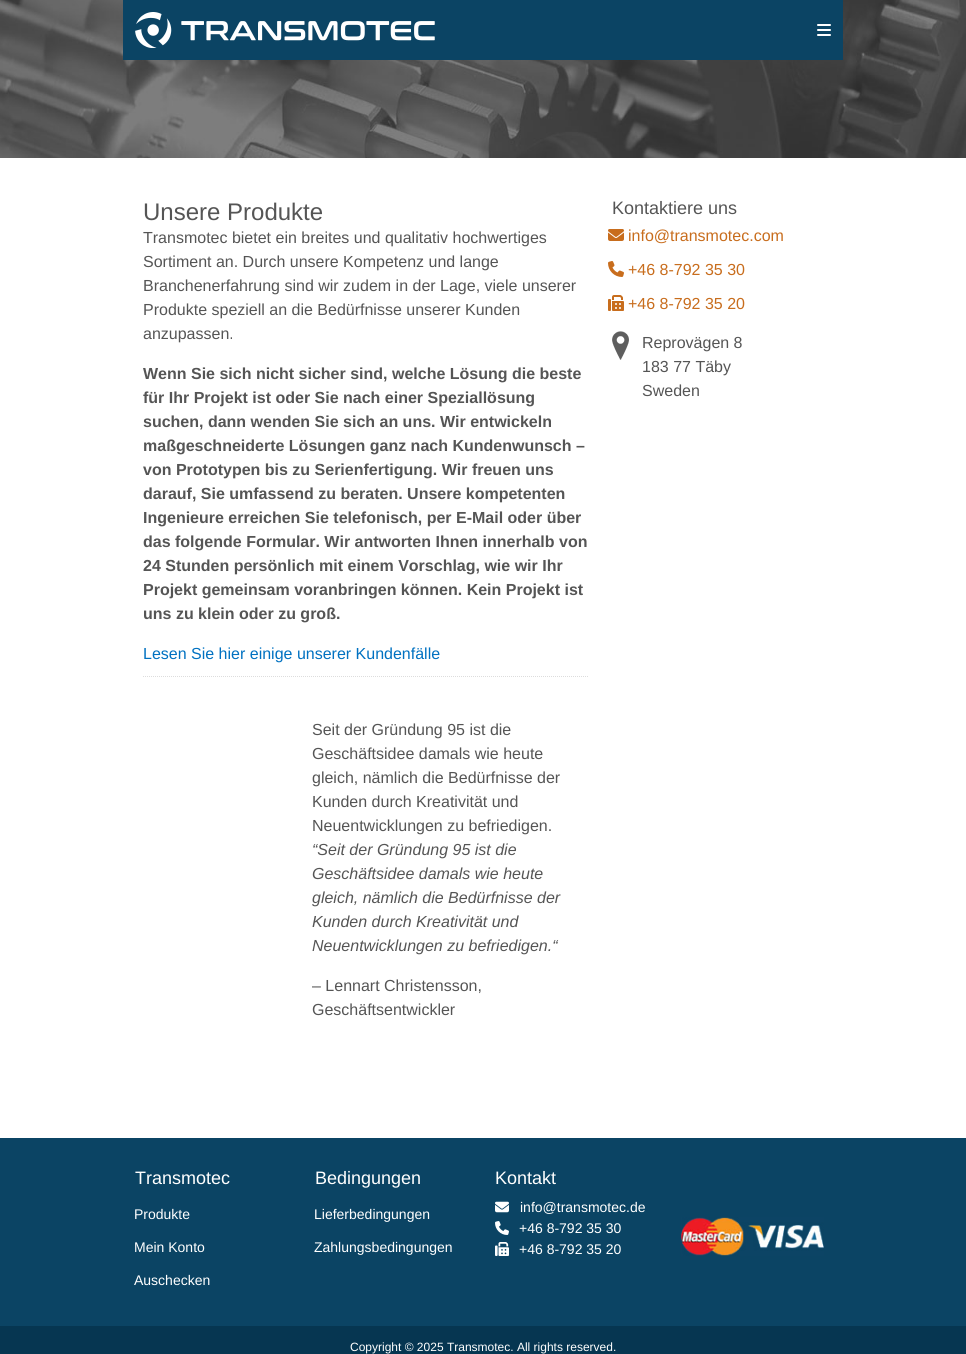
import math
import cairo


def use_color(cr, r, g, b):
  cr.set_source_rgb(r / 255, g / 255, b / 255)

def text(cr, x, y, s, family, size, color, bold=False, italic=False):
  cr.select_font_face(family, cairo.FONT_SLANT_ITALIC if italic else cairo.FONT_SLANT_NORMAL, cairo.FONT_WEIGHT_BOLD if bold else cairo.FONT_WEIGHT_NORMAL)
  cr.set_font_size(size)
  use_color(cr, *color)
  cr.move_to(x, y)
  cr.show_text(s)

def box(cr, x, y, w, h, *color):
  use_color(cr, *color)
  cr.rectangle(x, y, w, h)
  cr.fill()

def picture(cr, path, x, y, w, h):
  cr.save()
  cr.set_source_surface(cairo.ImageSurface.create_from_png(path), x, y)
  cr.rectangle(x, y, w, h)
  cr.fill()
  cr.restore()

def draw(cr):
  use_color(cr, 255, 255, 255)
  cr.paint()
  picture(cr, "img_03.png", 0, 0, 966, 158)
  box(cr, 123, 0, 720, 60, 11, 68, 100)
  picture(cr, "img_01.png", 135, 12, 300, 36)
  picture(cr, "img_02.png", 817, 24, 14, 12)
  cr.new_path()
  cr.move_to(143, 676.5)
  cr.line_to(588, 676.5)
  use_color(cr, 221, 221, 221)
  cr.set_line_width(1)
  cr.set_dash([1, 1])
  cr.stroke()
  picture(cr, "img_04.png", 608, 229, 16, 12)
  picture(cr, "img_05.png", 608, 261, 16, 16)
  picture(cr, "img_06.png", 608, 295, 16, 16)
  picture(cr, "img_07.png", 612, 331, 17, 29)
  box(cr, 0, 1138, 966, 188, 11, 68, 100)
  picture(cr, "img_08.png", 495, 1201, 14, 12)
  picture(cr, "img_09.png", 495, 1221, 14, 14)
  picture(cr, "img_10.png", 495, 1242, 14, 14)
  picture(cr, "img_11.png", 681, 1217, 143, 39)
  box(cr, 0, 1326, 966, 28, 6, 54, 81)
  text(cr, 143, 220, "Unsere Produkte", "Liberation Sans", 24, (85, 85, 85))
  text(cr, 143, 243, "Transmotec bietet ein breites und qualitativ hochwertiges", "Liberation Sans", 16, (85, 85, 85))
  text(cr, 143, 267, "Sortiment an. Durch unsere Kompetenz und lange", "Liberation Sans", 16, (85, 85, 85))
  text(cr, 143, 291, "Branchenerfahrung sind wir zudem in der Lage, viele unserer", "Liberation Sans", 16, (85, 85, 85))
  text(cr, 143, 315, "Produkte speziell an die Bedürfnisse unserer Kunden", "Liberation Sans", 16, (85, 85, 85))
  text(cr, 143, 339, "anzupassen.", "Liberation Sans", 16, (85, 85, 85))
  text(cr, 143, 379, "Wenn Sie sich nicht sicher sind, welche Lösung die beste", "Liberation Sans", 16, (85, 85, 85), bold=True)
  text(cr, 143, 403, "für Ihr Projekt ist oder Sie nach einer Speziallösung", "Liberation Sans", 16, (85, 85, 85), bold=True)
  text(cr, 143, 427, "suchen, dann wenden Sie sich an uns. Wir entwickeln", "Liberation Sans", 16, (85, 85, 85), bold=True)
  text(cr, 143, 451, "maßgeschneiderte Lösungen ganz nach Kundenwunsch –", "Liberation Sans", 16, (85, 85, 85), bold=True)
  text(cr, 143, 475, "von Prototypen bis zu Serienfertigung. Wir freuen uns", "Liberation Sans", 16, (85, 85, 85), bold=True)
  text(cr, 143, 499, "darauf, Sie umfassend zu beraten. Unsere kompetenten", "Liberation Sans", 16, (85, 85, 85), bold=True)
  text(cr, 143, 523, "Ingenieure erreichen Sie telefonisch, per E-Mail oder über", "Liberation Sans", 16, (85, 85, 85), bold=True)
  text(cr, 143, 547, "das folgende Formular. Wir antworten Ihnen innerhalb von", "Liberation Sans", 16, (85, 85, 85), bold=True)
  text(cr, 143, 571, "24 Stunden persönlich mit einem Vorschlag, wie wir Ihr", "Liberation Sans", 16, (85, 85, 85), bold=True)
  text(cr, 143, 595, "Projekt gemeinsam voranbringen können. Kein Projekt ist", "Liberation Sans", 16, (85, 85, 85), bold=True)
  text(cr, 143, 619, "uns zu klein oder zu groß.", "Liberation Sans", 16, (85, 85, 85), bold=True)
  text(cr, 143, 659, "Lesen Sie hier einige unserer Kundenfälle", "Liberation Sans", 16, (0, 113, 193))
  text(cr, 312, 735, "Seit der Gründung 95 ist die", "Liberation Sans", 16, (85, 85, 85))
  text(cr, 312, 759, "Geschäftsidee damals wie heute", "Liberation Sans", 16, (85, 85, 85))
  text(cr, 312, 783, "gleich, nämlich die Bedürfnisse der", "Liberation Sans", 16, (85, 85, 85))
  text(cr, 312, 807, "Kunden durch Kreativität und", "Liberation Sans", 16, (85, 85, 85))
  text(cr, 312, 831, "Neuentwicklungen zu befriedigen.", "Liberation Sans", 16, (85, 85, 85))
  text(cr, 312, 855, "“Seit der Gründung 95 ist die", "Liberation Sans", 16, (85, 85, 85), italic=True)
  text(cr, 312, 879, "Geschäftsidee damals wie heute", "Liberation Sans", 16, (85, 85, 85), italic=True)
  text(cr, 312, 903, "gleich, nämlich die Bedürfnisse der", "Liberation Sans", 16, (85, 85, 85), italic=True)
  text(cr, 312, 927, "Kunden durch Kreativität und", "Liberation Sans", 16, (85, 85, 85), italic=True)
  text(cr, 312, 951, "Neuentwicklungen zu befriedigen.“", "Liberation Sans", 16, (85, 85, 85), italic=True)
  text(cr, 312, 991, "– Lennart Christensson,", "Liberation Sans", 16, (85, 85, 85))
  text(cr, 312, 1015, "Geschäftsentwickler", "Liberation Sans", 16, (85, 85, 85))
  text(cr, 612, 214, "Kontaktiere uns", "Liberation Sans", 18, (85, 85, 85))
  text(cr, 628, 241, "info@transmotec.com", "Liberation Sans", 16, (200, 109, 29))
  text(cr, 628, 275, "+46 8-792 35 30", "Liberation Sans", 16, (200, 109, 29))
  text(cr, 628, 309, "+46 8-792 35 20", "Liberation Sans", 16, (200, 109, 29))
  text(cr, 642, 348, "Reprovägen 8", "Liberation Sans", 16, (85, 85, 85))
  text(cr, 642, 372, "183 77 Täby", "Liberation Sans", 16, (85, 85, 85))
  text(cr, 642, 396, "Sweden", "Liberation Sans", 16, (85, 85, 85))
  text(cr, 135, 1184, "Transmotec", "Liberation Sans", 18, (255, 255, 255))
  text(cr, 134, 1219, "Produkte", "Liberation Sans", 14, (255, 255, 255))
  text(cr, 134, 1252, "Mein Konto", "Liberation Sans", 14, (255, 255, 255))
  text(cr, 134, 1285, "Auschecken", "Liberation Sans", 14, (255, 255, 255))
  text(cr, 315, 1184, "Bedingungen", "Liberation Sans", 18, (255, 255, 255))
  text(cr, 314, 1219, "Lieferbedingungen", "Liberation Sans", 14, (255, 255, 255))
  text(cr, 314, 1252, "Zahlungsbedingungen", "Liberation Sans", 14, (255, 255, 255))
  text(cr, 495, 1184, "Kontakt", "Liberation Sans", 18, (255, 255, 255))
  text(cr, 520, 1212, "info@transmotec.de", "Liberation Sans", 14, (255, 255, 255))
  text(cr, 519, 1233, "+46 8-792 35 30", "Liberation Sans", 14, (255, 255, 255))
  text(cr, 519, 1254, "+46 8-792 35 20", "Liberation Sans", 14, (255, 255, 255))
  text(cr, 350, 1351, "Copyright © 2025 Transmotec. All rights reserved.", "Liberation Sans", 12, (255, 255, 255))


surface = cairo.ImageSurface(cairo.FORMAT_RGB24, 966, 1354)
cr = cairo.Context(surface)
options = cairo.FontOptions()
options.set_hint_metrics(cairo.HINT_METRICS_OFF)
options.set_hint_style(cairo.HINT_STYLE_NONE)
cr.set_font_options(options)
cr.set_miter_limit(4)
draw(cr)
surface.write_to_png("out.png")
